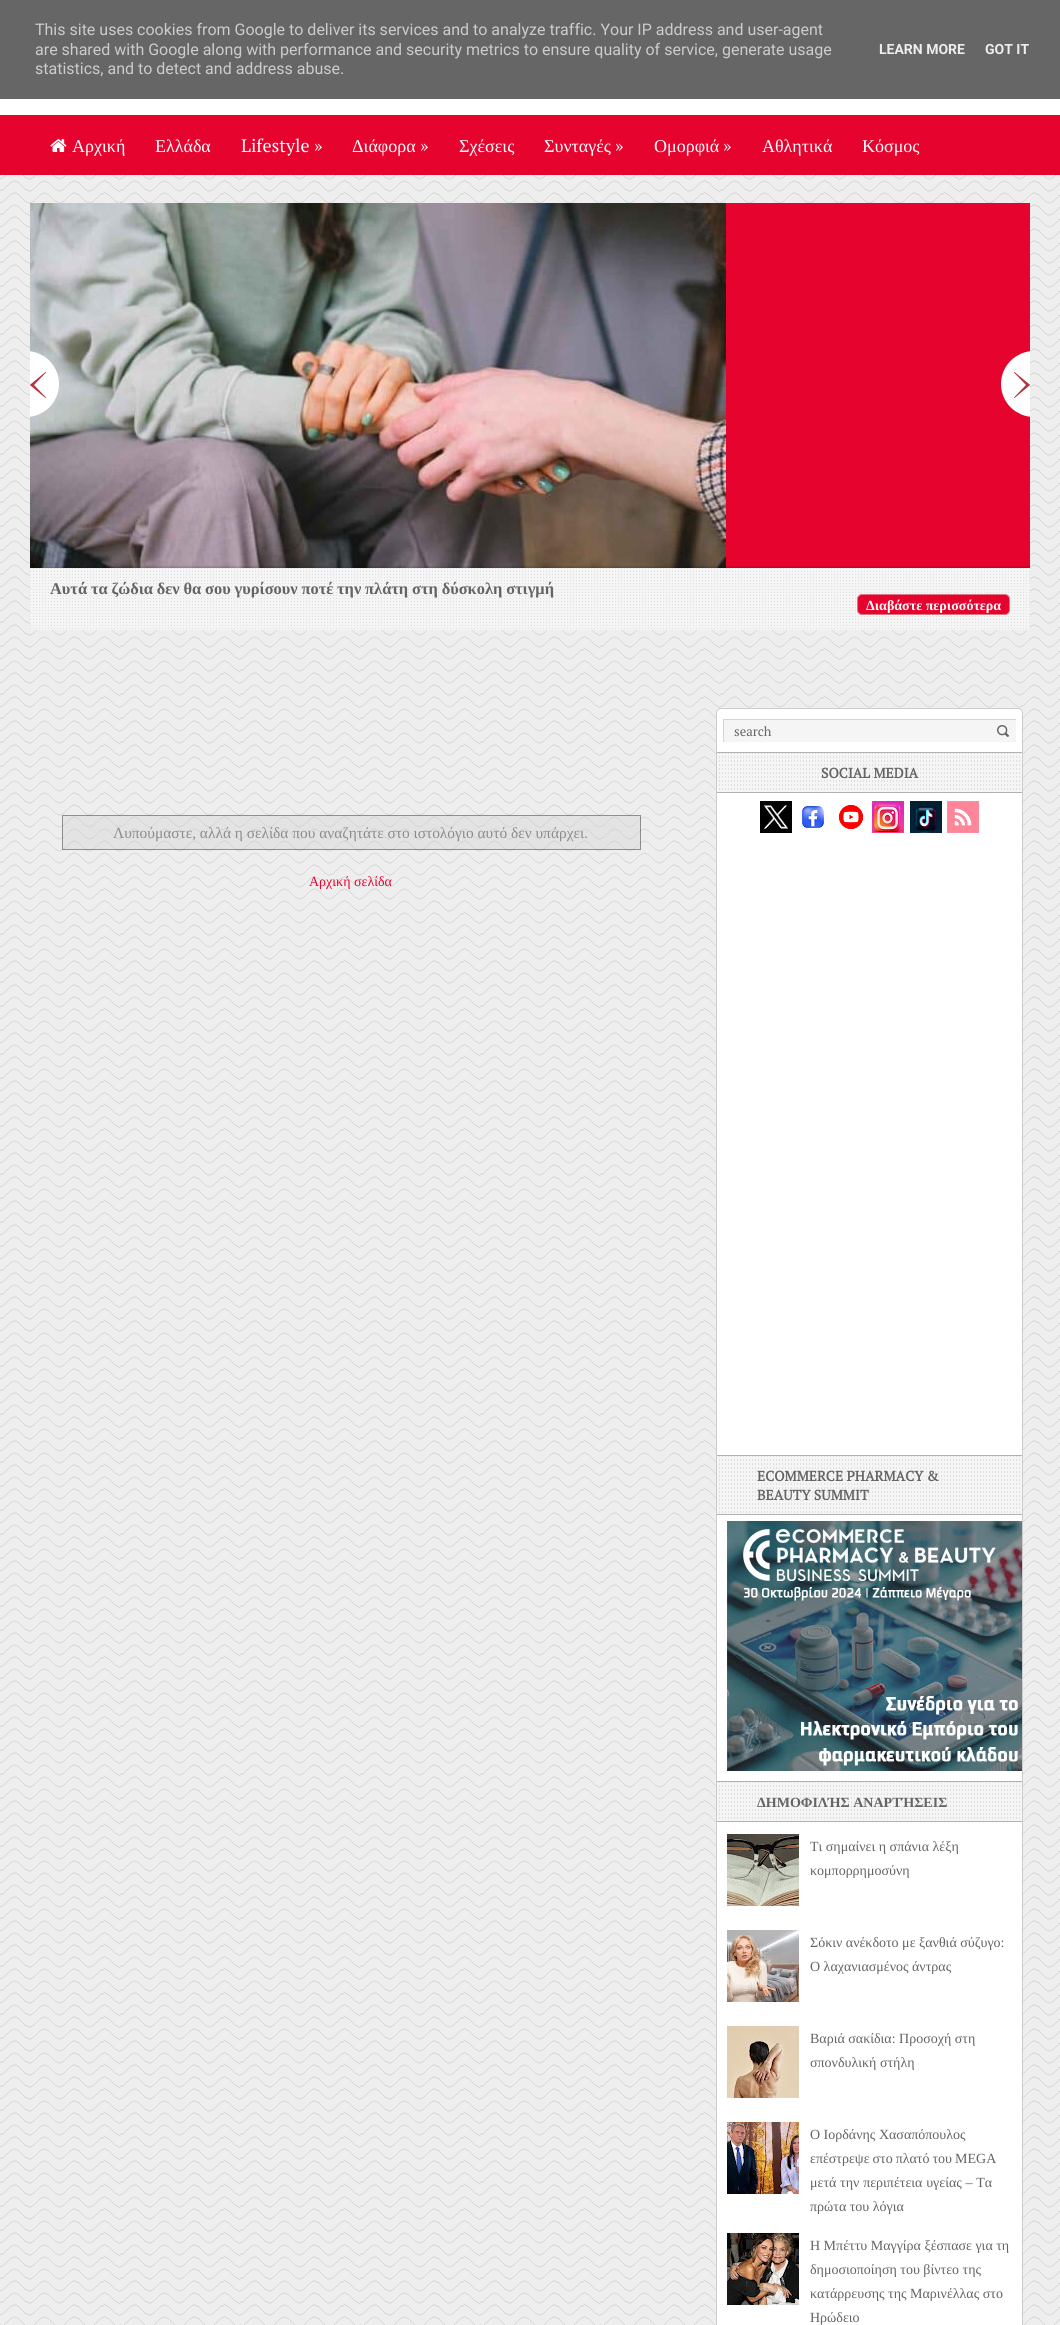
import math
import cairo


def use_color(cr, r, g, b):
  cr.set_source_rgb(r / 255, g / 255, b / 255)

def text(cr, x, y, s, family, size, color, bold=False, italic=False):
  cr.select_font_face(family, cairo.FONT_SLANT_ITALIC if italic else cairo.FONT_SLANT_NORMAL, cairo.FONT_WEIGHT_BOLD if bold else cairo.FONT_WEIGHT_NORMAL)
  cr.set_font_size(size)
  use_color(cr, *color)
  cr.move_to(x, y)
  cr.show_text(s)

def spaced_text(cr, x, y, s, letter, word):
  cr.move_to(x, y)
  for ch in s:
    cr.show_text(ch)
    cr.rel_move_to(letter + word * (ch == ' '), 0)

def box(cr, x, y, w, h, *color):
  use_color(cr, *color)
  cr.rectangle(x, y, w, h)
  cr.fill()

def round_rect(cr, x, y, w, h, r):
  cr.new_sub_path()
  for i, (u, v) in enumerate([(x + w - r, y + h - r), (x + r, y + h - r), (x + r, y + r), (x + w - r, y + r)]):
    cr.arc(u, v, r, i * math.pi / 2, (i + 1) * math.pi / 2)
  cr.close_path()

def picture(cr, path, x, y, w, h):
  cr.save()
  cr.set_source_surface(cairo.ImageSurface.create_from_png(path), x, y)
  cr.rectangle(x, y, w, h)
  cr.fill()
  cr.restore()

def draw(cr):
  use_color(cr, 255, 255, 255)
  cr.paint()
  picture(cr, "img_01.png", 0, 175, 1060, 2150)
  box(cr, 0, 0, 1060, 99, 102, 102, 102)
  box(cr, 0, 115, 1060, 60, 230, 3, 45)
  picture(cr, "img_02.png", 50, 139, 17, 13)
  box(cr, 726, 203, 304, 365, 230, 3, 45)
  picture(cr, "img_05.png", 30, 203, 696, 365)
  picture(cr, "img_03.png", 30, 351, 29, 66)
  picture(cr, "img_04.png", 1001, 351, 29, 66)
  picture(cr, "img_06.png", 30, 565, 1000, 65)
  round_rect(cr, 857.5, 594.5, 152, 20, 4.5)
  cr.fill_preserve()
  use_color(cr, 224, 117, 133)
  cr.set_line_width(1)
  cr.stroke()
  cr.rectangle(62.5, 815.5, 578, 34)
  cr.set_source_rgba(0, 0, 0, 0.4)
  cr.stroke()
  cr.set_source_rgba(0.8, 0.8, 0.8, 0.32)
  cr.rectangle(63, 816, 577, 33)
  cr.fill()
  use_color(cr, 255, 255, 255)
  round_rect(cr, 716.5, 708.5, 306, 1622, 4.5)
  cr.fill_preserve()
  use_color(cr, 204, 204, 204)
  cr.stroke()
  box(cr, 724, 720, 292, 22, 245, 245, 245)
  box(cr, 723, 719, 293, 1, 213, 213, 213)
  box(cr, 723, 719, 1, 23, 213, 213, 213)
  picture(cr, "img_07.png", 997, 725, 12, 12)
  picture(cr, "img_08.png", 717, 753, 305, 39)
  box(cr, 717, 752, 305, 1, 177, 177, 177)
  box(cr, 717, 792, 305, 1, 177, 177, 177)
  picture(cr, "img_09.png", 760, 801, 32, 32)
  picture(cr, "img_10.png", 802, 806, 22, 22)
  picture(cr, "img_11.png", 839, 805, 24, 24)
  picture(cr, "img_12.png", 872, 801, 32, 32)
  picture(cr, "img_13.png", 910, 801, 32, 32)
  picture(cr, "img_14.png", 947, 801, 32, 32)
  picture(cr, "img_15.png", 717, 1456, 305, 58)
  box(cr, 717, 1455, 305, 1, 177, 177, 177)
  box(cr, 717, 1514, 305, 1, 177, 177, 177)
  picture(cr, "img_16.png", 727, 1521, 295, 250)
  picture(cr, "img_08.png", 717, 1782, 305, 39)
  box(cr, 717, 1781, 305, 1, 177, 177, 177)
  box(cr, 717, 1821, 305, 1, 177, 177, 177)
  picture(cr, "img_17.png", 727, 1834, 72, 72)
  picture(cr, "img_18.png", 727, 1930, 72, 72)
  picture(cr, "img_19.png", 727, 2026, 72, 72)
  picture(cr, "img_20.png", 727, 2122, 72, 72)
  picture(cr, "img_21.png", 727, 2233, 72, 72)
  text(cr, 35, 35, "This site uses cookies from Google to deliver its services and to analyze traffic. Your IP address and user-agent", "Roboto", 16, (204, 204, 204))
  text(cr, 35, 55, "are shared with Google along with performance and security metrics to ensure quality of service, generate usage", "Roboto", 16, (204, 204, 204))
  text(cr, 35, 74, "statistics, and to detect and address abuse.", "Roboto", 16, (204, 204, 204))
  text(cr, 879, 54, "LEARN MORE", "Roboto", 14, (238, 238, 238), bold=True)
  text(cr, 985, 54, "GOT IT", "Roboto", 14, (238, 238, 238), bold=True)
  text(cr, 72, 152, "Αρχική", "Liberation Serif", 18, (255, 255, 255))
  text(cr, 155, 152, "Ελλάδα", "Liberation Serif", 18, (255, 255, 255))
  text(cr, 241, 152, "Lifestyle »", "PT Serif", 18, (255, 255, 255))
  text(cr, 352, 152, "Διάφορα", "Liberation Serif", 18, (255, 255, 255))
  text(cr, 420, 152, "»", "PT Serif", 18, (255, 255, 255))
  text(cr, 459, 152, "Σχέσεις", "Liberation Serif", 18, (255, 255, 255))
  text(cr, 544, 152, "Συνταγές", "Liberation Serif", 18, (255, 255, 255))
  text(cr, 615, 152, "»", "PT Serif", 18, (255, 255, 255))
  text(cr, 654, 152, "Ομορφιά", "Liberation Serif", 18, (255, 255, 255))
  text(cr, 723, 152, "»", "PT Serif", 18, (255, 255, 255))
  text(cr, 762, 152, "Αθλητικά", "Liberation Serif", 18, (255, 255, 255))
  text(cr, 862, 152, "Κόσμος", "Liberation Serif", 18, (255, 255, 255))
  cr.select_font_face("Liberation Serif", cairo.FONT_SLANT_NORMAL, cairo.FONT_WEIGHT_BOLD)
  cr.set_font_size(16.4)
  use_color(cr, 100, 100, 100)
  spaced_text(cr, 50, 594, "Αυτά τα ζώδια δεν θα σου γυρίσουν ποτέ την πλάτη στη δύσκολη στιγμή", 0, -0.25)
  text(cr, 866, 610, "Διαβάστε περισσότερα", "Liberation Serif", 14, (255, 255, 255), bold=True)
  text(cr, 113, 838, "Λυπούμαστε, αλλά η σελίδα που αναζητάτε στο ιστολόγιο αυτό δεν υπάρχει.", "Liberation Serif", 15.4, (140, 140, 140))
  text(cr, 309, 886, "Αρχική σελίδα", "Liberation Serif", 14, (230, 3, 45))
  text(cr, 734, 736, "search", "PT Serif", 13, (100, 100, 100))
  text(cr, 821, 778, "SOCIAL MEDIA", "PT Serif", 14, (100, 100, 100), bold=True)
  text(cr, 757, 1481, "ECOMMERCE PHARMACY &", "PT Serif", 14, (100, 100, 100), bold=True)
  text(cr, 757, 1500, "BEAUTY SUMMIT", "PT Serif", 14, (100, 100, 100), bold=True)
  text(cr, 757, 1807, "ΔΗΜΟΦΙΛΉΣ ΑΝΑΡΤΉΣΕΙΣ", "Liberation Serif", 14, (100, 100, 100), bold=True)
  text(cr, 810, 1851, "Τι σημαίνει η σπάνια λέξη", "Liberation Serif", 14, (100, 100, 100))
  text(cr, 810, 1875, "κομπορρημοσύνη", "Liberation Serif", 14, (100, 100, 100))
  text(cr, 810, 1947, "Σόκιν ανέκδοτο με ξανθιά σύζυγο:", "Liberation Serif", 14, (100, 100, 100))
  text(cr, 810, 1971, "Ο λαχανιασμένος άντρας", "Liberation Serif", 14, (100, 100, 100))
  text(cr, 810, 2043, "Βαριά σακίδια: Προσοχή στη", "Liberation Serif", 14, (100, 100, 100))
  text(cr, 810, 2067, "σπονδυλική στήλη", "Liberation Serif", 14, (100, 100, 100))
  text(cr, 810, 2139, "O Ιορδάνης Χασαπόπουλος", "Liberation Serif", 14, (100, 100, 100))
  spaced_text(cr, 810, 2163, "επέστρεψε στο πλατό του MEGA", 0, -0.5)
  spaced_text(cr, 810, 2187, "μετά την περιπέτεια υγείας – Τα", 0, 0.25)
  text(cr, 810, 2211, "πρώτα του λόγια", "Liberation Serif", 14, (100, 100, 100))
  text(cr, 810, 2250, "Η Μπέττυ Μαγγίρα ξέσπασε για τη", "Liberation Serif", 14, (100, 100, 100))
  text(cr, 810, 2274, "δημοσιοποίηση του βίντεο της", "Liberation Serif", 14, (100, 100, 100))
  text(cr, 810, 2298, "κατάρρευσης της Μαρινέλλας στο", "Liberation Serif", 14, (100, 100, 100))
  text(cr, 810, 2322, "Ηρώδειο", "Liberation Serif", 14, (100, 100, 100))


surface = cairo.ImageSurface(cairo.FORMAT_RGB24, 1060, 2325)
cr = cairo.Context(surface)
options = cairo.FontOptions()
options.set_hint_metrics(cairo.HINT_METRICS_OFF)
options.set_hint_style(cairo.HINT_STYLE_NONE)
cr.set_font_options(options)
cr.set_miter_limit(4)
draw(cr)
surface.write_to_png("out.png")
